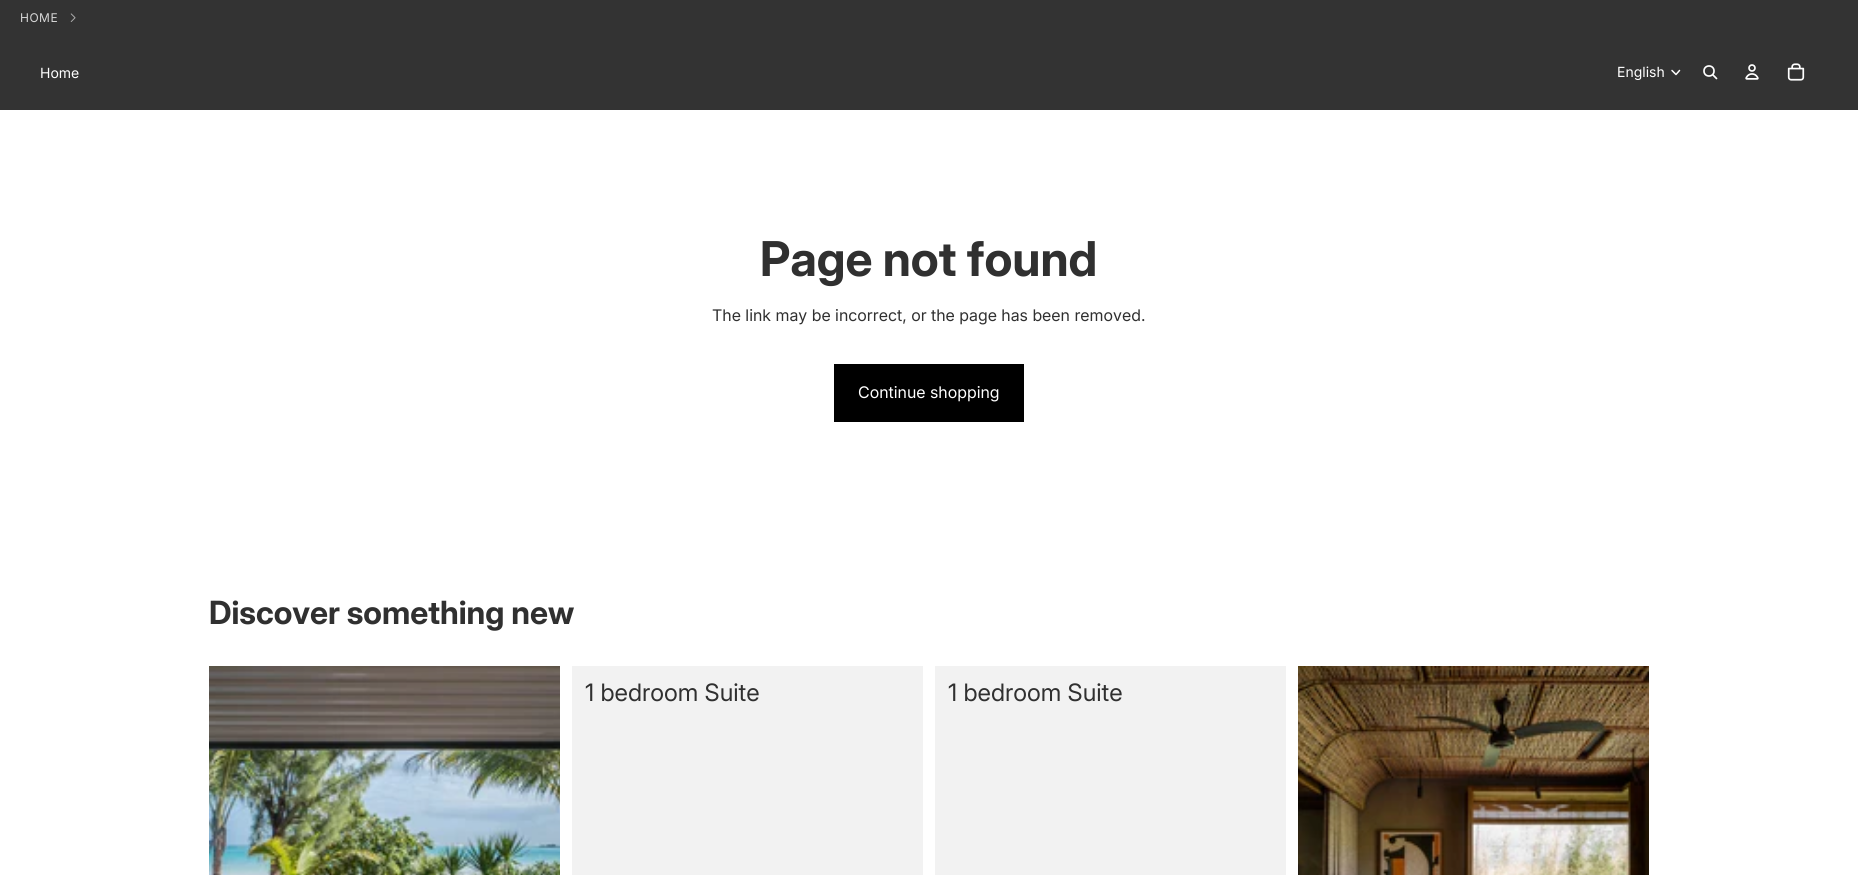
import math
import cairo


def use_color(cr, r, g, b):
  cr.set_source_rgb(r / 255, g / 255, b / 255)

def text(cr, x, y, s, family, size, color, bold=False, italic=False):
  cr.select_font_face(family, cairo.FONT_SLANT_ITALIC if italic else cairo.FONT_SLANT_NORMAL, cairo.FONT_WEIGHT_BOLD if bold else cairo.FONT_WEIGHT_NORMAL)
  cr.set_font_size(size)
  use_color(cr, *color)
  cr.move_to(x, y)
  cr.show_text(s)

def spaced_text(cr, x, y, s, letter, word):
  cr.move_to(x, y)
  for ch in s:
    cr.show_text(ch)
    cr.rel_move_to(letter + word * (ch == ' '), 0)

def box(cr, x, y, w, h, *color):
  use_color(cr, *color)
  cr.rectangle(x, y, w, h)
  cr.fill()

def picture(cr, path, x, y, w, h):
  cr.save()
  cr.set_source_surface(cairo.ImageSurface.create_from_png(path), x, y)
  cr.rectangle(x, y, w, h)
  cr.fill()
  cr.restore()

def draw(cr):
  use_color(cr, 255, 255, 255)
  cr.paint()
  box(cr, 0, 0, 1858, 110, 51, 51, 51)
  picture(cr, "img_01.png", 70, 13, 6, 9)
  cr.new_path()
  cr.move_to(1679.5, 70.5)
  cr.line_to(1676, 74.5)
  cr.line_to(1672, 70.5)
  use_color(cr, 255, 255, 255)
  cr.set_line_width(1.5)
  cr.set_line_cap(cairo.LINE_CAP_ROUND)
  cr.set_line_join(cairo.LINE_JOIN_ROUND)
  cr.stroke()
  cr.arc(1709, 71, 5, 0, 2 * math.pi)
  cr.set_line_width(1.7)
  cr.set_line_cap(cairo.LINE_CAP_BUTT)
  cr.set_line_join(cairo.LINE_JOIN_MITER)
  cr.stroke()
  cr.new_path()
  cr.move_to(1713, 75)
  cr.line_to(1716.5, 78.5)
  cr.set_line_cap(cairo.LINE_CAP_ROUND)
  cr.set_line_join(cairo.LINE_JOIN_ROUND)
  cr.stroke()
  picture(cr, "img_02.png", 1745, 64, 14, 16)
  picture(cr, "img_03.png", 1787, 63, 18, 18)
  box(cr, 834, 364, 190, 58, 0, 0, 0)
  picture(cr, "img_04.png", 209, 666, 351, 209)
  box(cr, 572, 666, 351, 209, 242, 242, 242)
  box(cr, 935, 666, 351, 209, 242, 242, 242)
  picture(cr, "img_05.png", 1298, 666, 351, 209)
  cr.select_font_face("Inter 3")
  cr.set_font_size(12)
  use_color(cr, 214, 214, 214)
  spaced_text(cr, 20, 22, "HOME", 0.5, 0)
  text(cr, 40, 78, "Home", "Inter 3", 14, (255, 255, 255))
  text(cr, 1617, 77, "English", "Inter 3", 14, (255, 255, 255))
  text(cr, 760, 276, "Page not found", "Inter", 48, (48, 48, 48), bold=True)
  text(cr, 712, 321, "The link may be incorrect, or the page has been removed.", "Inter", 16, (48, 48, 48))
  text(cr, 858, 398, "Continue shopping", "Inter", 16, (255, 255, 255))
  text(cr, 209, 624, "Discover something new", "Inter", 32, (48, 48, 48), bold=True)
  text(cr, 585, 701, "1 bedroom Suite", "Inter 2", 24, (48, 48, 48))
  text(cr, 948, 701, "1 bedroom Suite", "Inter 2", 24, (48, 48, 48))


surface = cairo.ImageSurface(cairo.FORMAT_RGB24, 1858, 875)
cr = cairo.Context(surface)
options = cairo.FontOptions()
options.set_hint_metrics(cairo.HINT_METRICS_OFF)
options.set_hint_style(cairo.HINT_STYLE_NONE)
cr.set_font_options(options)
cr.set_miter_limit(4)
draw(cr)
surface.write_to_png("out.png")
